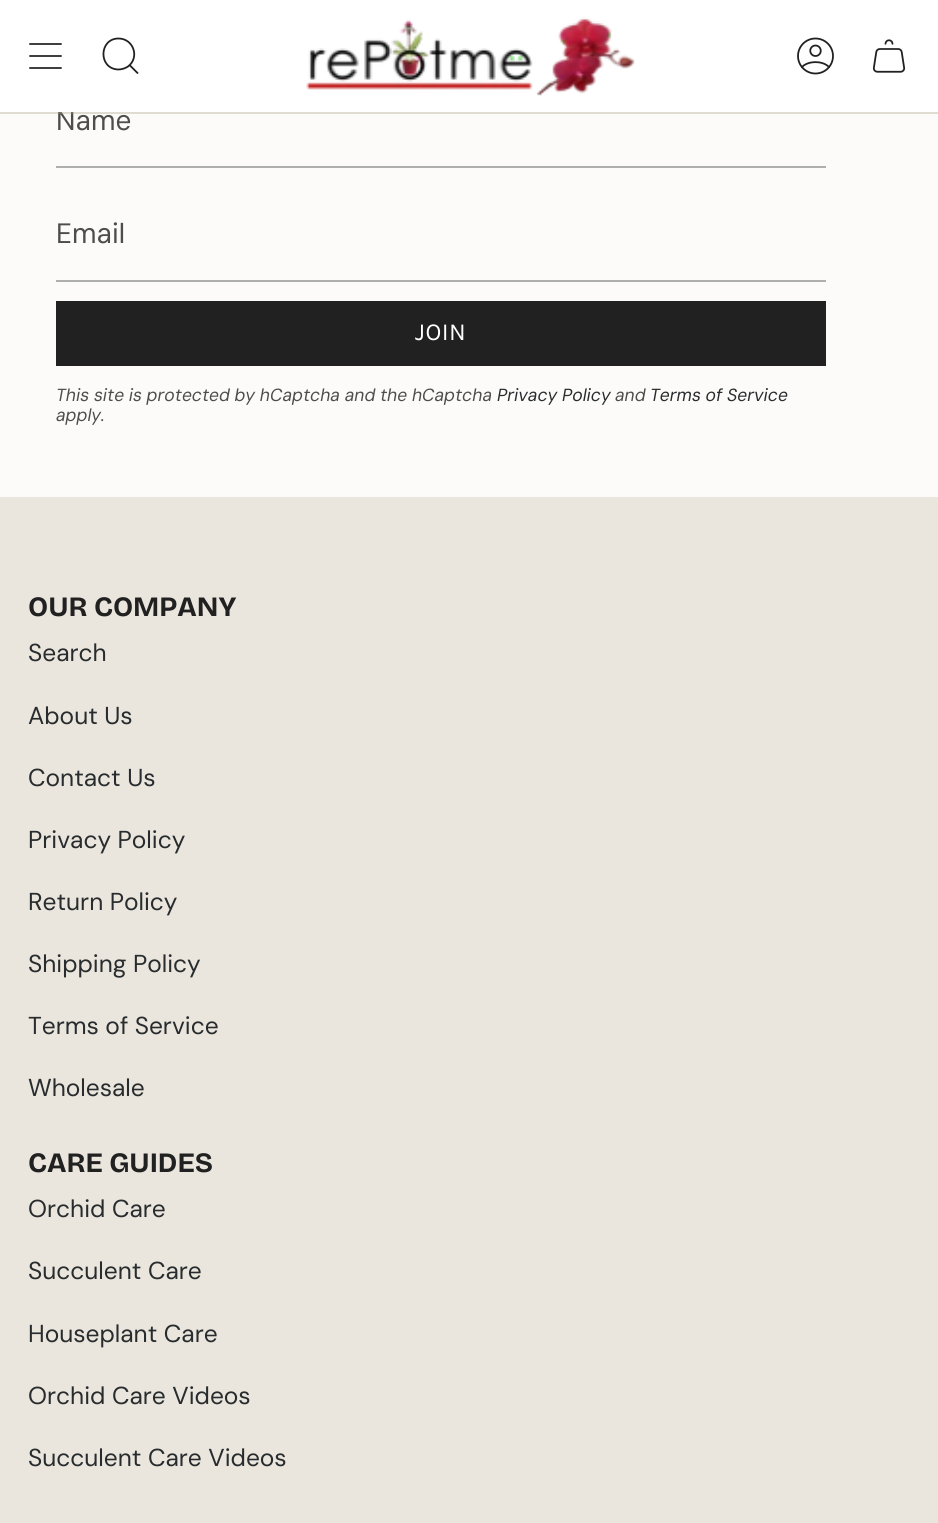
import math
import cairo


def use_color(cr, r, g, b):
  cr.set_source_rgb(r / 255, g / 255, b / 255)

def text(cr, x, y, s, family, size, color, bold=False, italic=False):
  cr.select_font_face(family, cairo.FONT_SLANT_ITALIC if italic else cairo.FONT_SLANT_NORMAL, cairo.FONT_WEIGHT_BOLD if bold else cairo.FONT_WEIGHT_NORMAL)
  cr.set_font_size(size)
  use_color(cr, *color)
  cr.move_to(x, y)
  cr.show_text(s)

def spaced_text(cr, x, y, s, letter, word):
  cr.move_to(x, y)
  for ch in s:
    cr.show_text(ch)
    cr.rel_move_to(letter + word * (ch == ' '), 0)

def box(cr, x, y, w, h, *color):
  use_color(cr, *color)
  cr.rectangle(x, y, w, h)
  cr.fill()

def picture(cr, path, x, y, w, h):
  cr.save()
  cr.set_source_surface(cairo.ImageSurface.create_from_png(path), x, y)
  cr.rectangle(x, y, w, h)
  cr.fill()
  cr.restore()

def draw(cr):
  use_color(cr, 252, 251, 249)
  cr.paint()
  box(cr, 56, 166, 770, 2, 175, 175, 173)
  box(cr, 56, 280, 770, 2, 175, 175, 173)
  box(cr, 56, 301, 770, 65, 33, 33, 33)
  box(cr, 0, 497, 938, 1026, 234, 230, 221)
  text(cr, 56, 130, "Name", "DM Sans", 28, (77, 77, 76))
  cr.set_source_rgba(0.69, 0.639, 0.545, 0.35)
  cr.rectangle(0, 112, 938, 2)
  cr.fill()
  box(cr, 0, 0, 938, 112, 255, 255, 255)
  picture(cr, "img_03.png", 872, 39, 34, 34)
  picture(cr, "img_02.png", 797, 37, 37, 38)
  picture(cr, "img_01.png", 306, 17, 329, 79)
  cr.new_path()
  cr.move_to(118.5, 38.5)
  cr.curve_to(133.5, 38.5, 140, 57.5, 128, 66.5)
  cr.curve_to(125, 68.5, 121.5, 69.5, 118, 69.5)
  cr.curve_to(98, 68.5, 99, 38.5, 118.5, 38.5)
  cr.close_path()
  cr.move_to(129.5, 65)
  cr.line_to(138, 73.5)
  use_color(cr, 33, 33, 33)
  cr.set_line_width(1.8)
  cr.stroke()
  cr.new_path()
  cr.move_to(30, 44)
  cr.line_to(61, 44)
  cr.move_to(30, 56)
  cr.line_to(61, 56)
  cr.move_to(30, 68)
  cr.line_to(61, 68)
  cr.set_line_cap(cairo.LINE_CAP_ROUND)
  cr.set_line_join(cairo.LINE_JOIN_ROUND)
  cr.stroke()
  text(cr, 56, 243, "Email", "DM Sans", 28, (77, 77, 76))
  cr.select_font_face("Karla")
  cr.set_font_size(24.5)
  use_color(cr, 255, 255, 255)
  spaced_text(cr, 415, 340, "JOIN", 0.5, 0)
  text(cr, 56, 401, "This site is protected by hCaptcha and the hCaptcha", "DM Sans", 17.5, (77, 77, 76), italic=True)
  text(cr, 497, 401, "Privacy Policy", "DM Sans", 17.5, (40, 44, 46), italic=True)
  text(cr, 615, 401, "and", "DM Sans", 17.5, (77, 77, 76), italic=True)
  text(cr, 650, 401, "Terms of Service", "DM Sans", 17.5, (40, 44, 46), italic=True)
  text(cr, 56, 421, "apply.", "DM Sans", 17.5, (77, 77, 76), italic=True)
  text(cr, 28, 616, "OUR COMPANY", "Bricolage Grotesque", 28, (33, 33, 33), bold=True)
  text(cr, 28, 661, "Search", "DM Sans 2", 24.5, (40, 44, 46))
  text(cr, 28, 724, "About Us", "DM Sans 2", 24.5, (40, 44, 46))
  text(cr, 28, 786, "Contact Us", "DM Sans 2", 24.5, (40, 44, 46))
  text(cr, 28, 848, "Privacy Policy", "DM Sans 2", 24.5, (40, 44, 46))
  text(cr, 28, 910, "Return Policy", "DM Sans 2", 24.5, (40, 44, 46))
  text(cr, 28, 972, "Shipping Policy", "DM Sans 2", 24.5, (40, 44, 46))
  text(cr, 28, 1034, "Terms of Service", "DM Sans 2", 24.5, (40, 44, 46))
  text(cr, 28, 1096, "Wholesale", "DM Sans 2", 24.5, (40, 44, 46))
  text(cr, 28, 1172, "CARE GUIDES", "Bricolage Grotesque", 28, (33, 33, 33), bold=True)
  text(cr, 28, 1217, "Orchid Care", "DM Sans 2", 24.5, (40, 44, 46))
  text(cr, 28, 1279, "Succulent Care", "DM Sans 2", 24.5, (40, 44, 46))
  text(cr, 28, 1342, "Houseplant Care", "DM Sans 2", 24.5, (40, 44, 46))
  text(cr, 28, 1404, "Orchid Care Videos", "DM Sans 2", 24.5, (40, 44, 46))
  text(cr, 28, 1466, "Succulent Care Videos", "DM Sans 2", 24.5, (40, 44, 46))


surface = cairo.ImageSurface(cairo.FORMAT_RGB24, 938, 1523)
cr = cairo.Context(surface)
options = cairo.FontOptions()
options.set_hint_metrics(cairo.HINT_METRICS_OFF)
options.set_hint_style(cairo.HINT_STYLE_NONE)
cr.set_font_options(options)
cr.set_miter_limit(4)
draw(cr)
surface.write_to_png("out.png")
